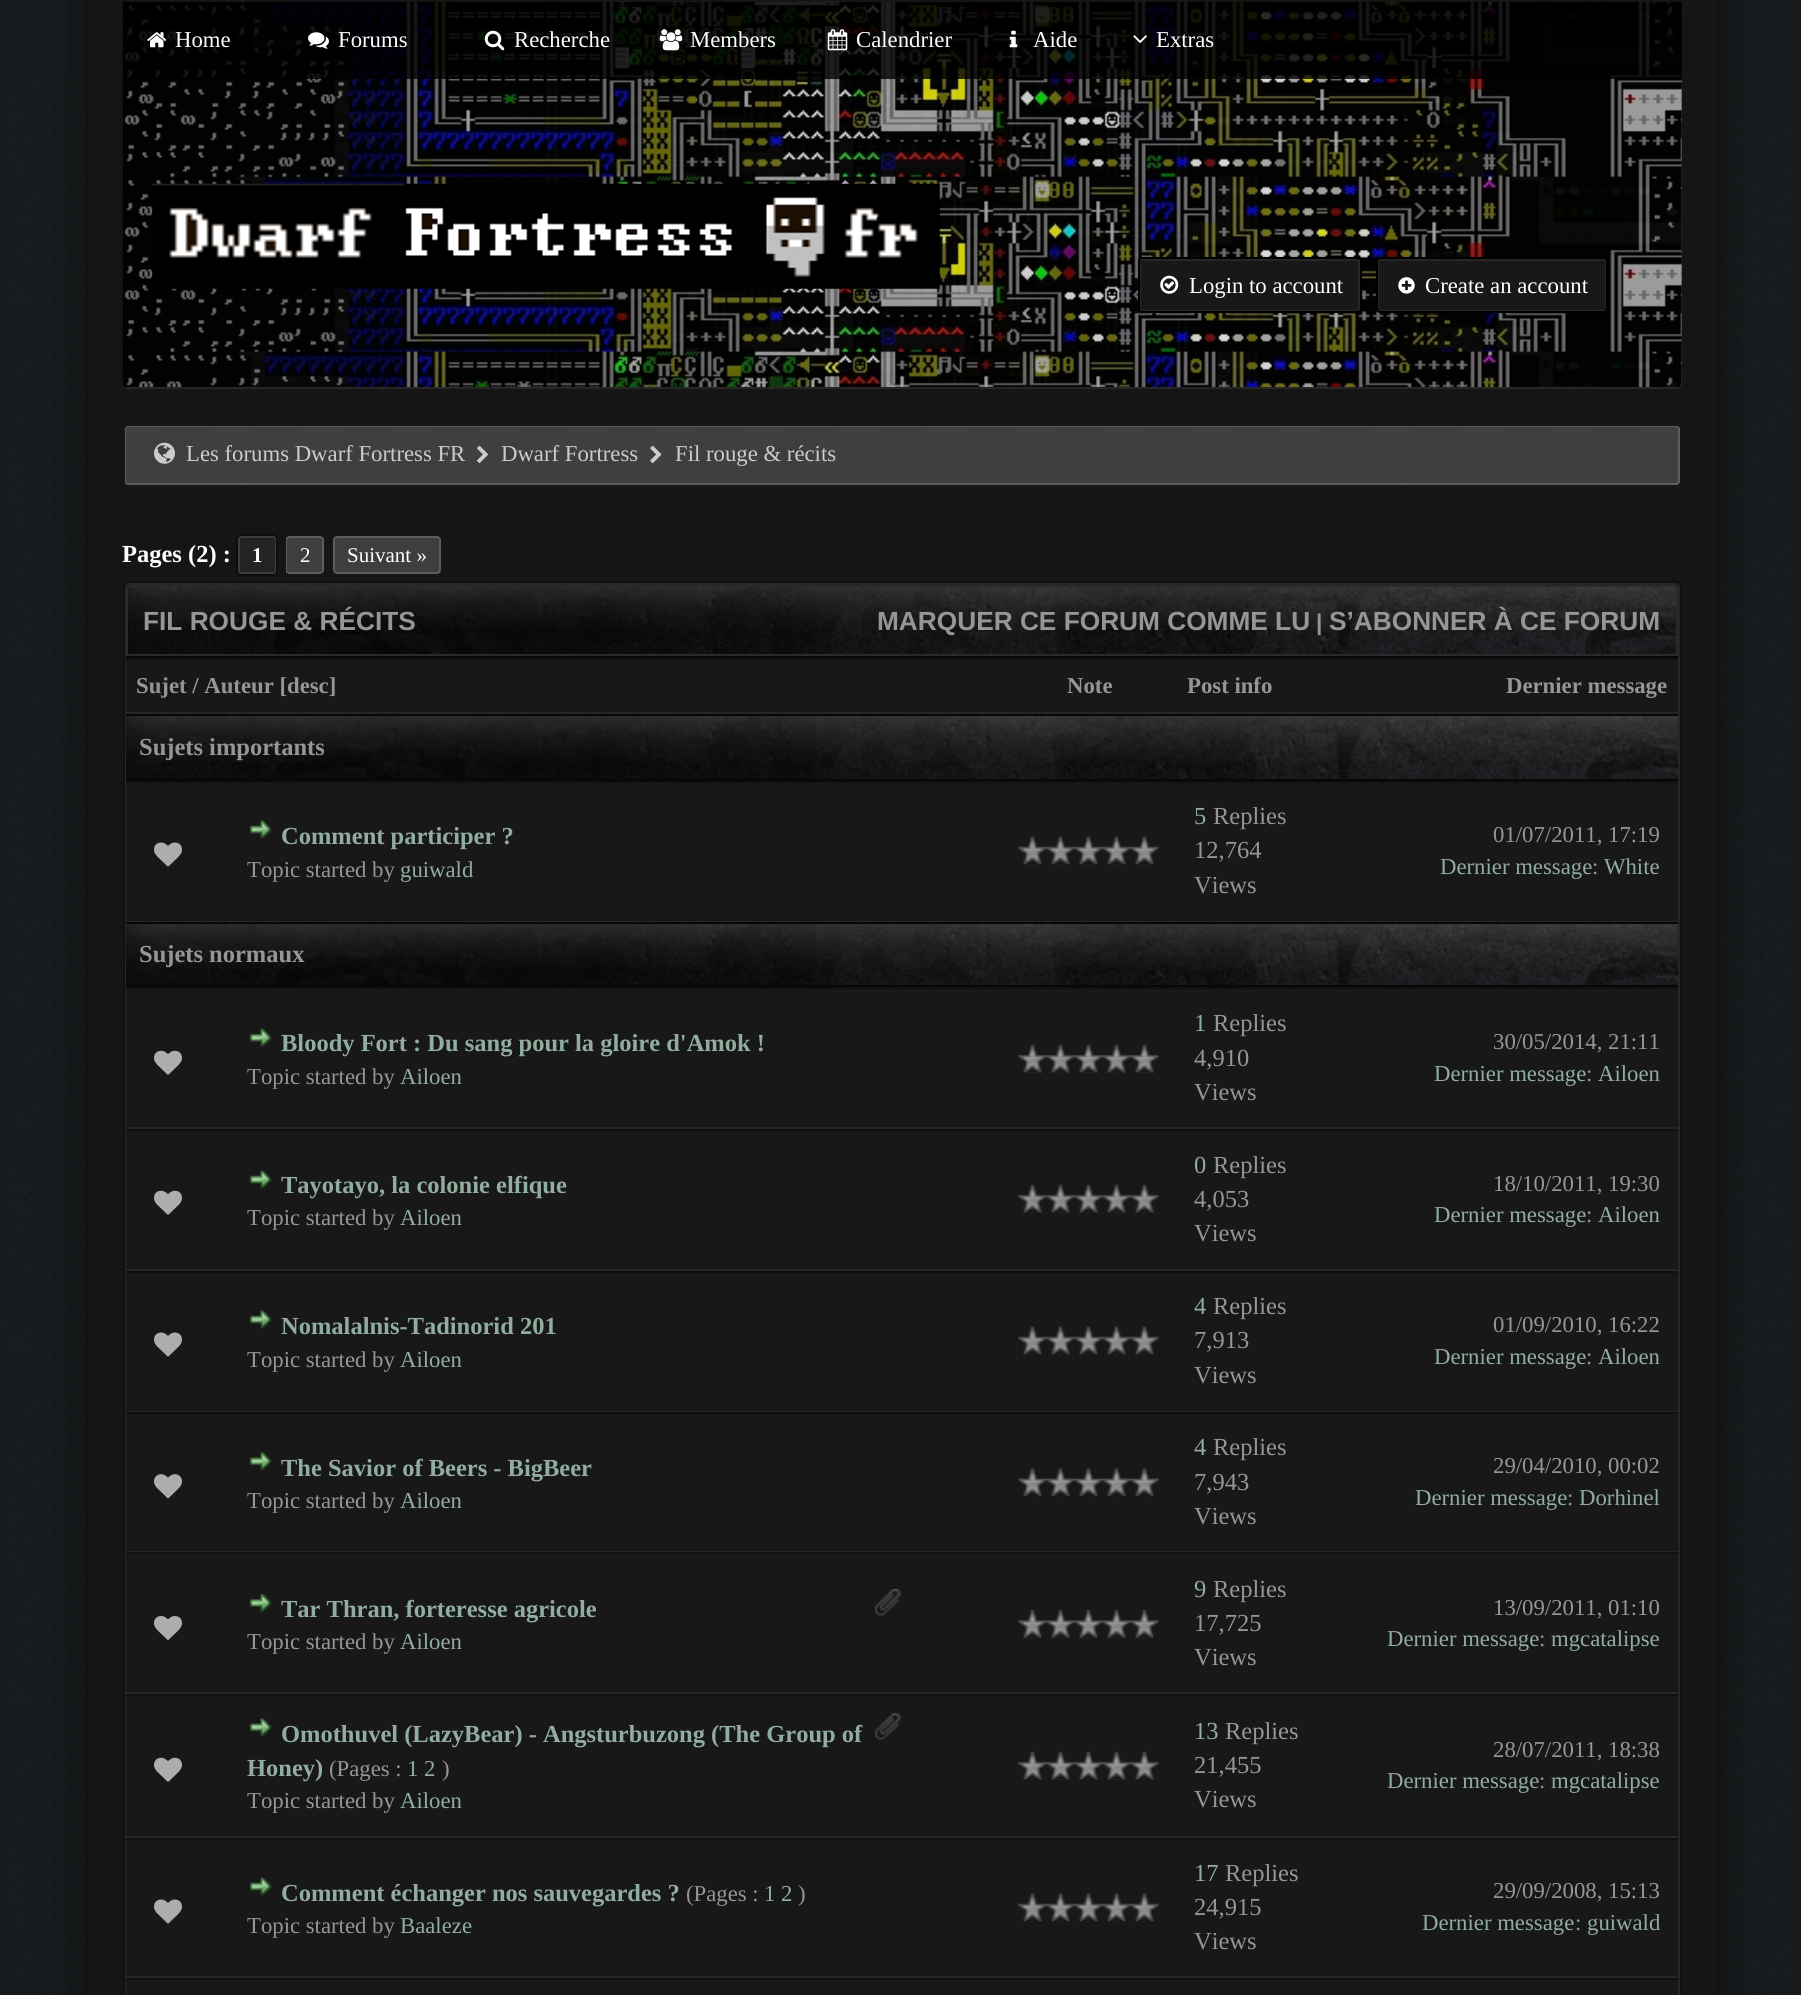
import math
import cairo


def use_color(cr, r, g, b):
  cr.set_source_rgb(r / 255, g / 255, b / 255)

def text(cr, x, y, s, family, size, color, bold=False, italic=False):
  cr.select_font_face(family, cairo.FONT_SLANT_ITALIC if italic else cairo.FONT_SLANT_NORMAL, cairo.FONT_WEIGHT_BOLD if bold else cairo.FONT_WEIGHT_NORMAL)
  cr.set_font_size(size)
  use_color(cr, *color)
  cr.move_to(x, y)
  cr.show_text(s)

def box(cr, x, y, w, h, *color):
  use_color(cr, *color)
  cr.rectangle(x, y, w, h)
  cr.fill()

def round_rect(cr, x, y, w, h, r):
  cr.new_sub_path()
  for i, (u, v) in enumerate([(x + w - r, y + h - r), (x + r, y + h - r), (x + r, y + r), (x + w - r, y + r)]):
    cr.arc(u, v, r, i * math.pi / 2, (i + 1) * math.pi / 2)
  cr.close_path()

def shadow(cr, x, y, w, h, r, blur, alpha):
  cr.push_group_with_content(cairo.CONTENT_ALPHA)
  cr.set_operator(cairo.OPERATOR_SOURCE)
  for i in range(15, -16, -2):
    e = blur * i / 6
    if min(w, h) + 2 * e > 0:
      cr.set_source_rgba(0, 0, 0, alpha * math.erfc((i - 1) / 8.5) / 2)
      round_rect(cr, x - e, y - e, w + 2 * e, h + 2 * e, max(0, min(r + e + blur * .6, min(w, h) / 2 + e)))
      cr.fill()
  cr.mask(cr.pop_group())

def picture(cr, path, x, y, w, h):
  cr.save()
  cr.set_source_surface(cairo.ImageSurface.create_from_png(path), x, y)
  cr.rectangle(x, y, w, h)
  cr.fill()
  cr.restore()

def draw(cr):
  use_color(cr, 23, 27, 29)
  cr.paint()
  picture(cr, "img_01.png", 4, 74, 1793, 1910)
  use_color(cr, 13, 13, 13)
  shadow(cr, 86, -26, 1633, 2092, 5, 22, 1)
  use_color(cr, 21, 21, 21)
  cr.rectangle(87, -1, 1631, 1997)
  cr.fill_preserve()
  use_color(cr, 16, 16, 16)
  cr.stroke()
  use_color(cr, 57, 59, 71)
  cr.new_path()
  cr.move_to(123, 2)
  cr.line_to(1682, 2)
  cr.line_to(1682, 382)
  cr.curve_to(1682, 386, 1679, 389, 1675, 389)
  cr.line_to(130, 389)
  cr.curve_to(126, 389, 123, 386, 123, 382)
  cr.close_path()
  cr.fill()
  picture(cr, "img_09.png", 122, 1, 1560, 387)
  cr.set_source_rgba(0, 0, 0, 0.8)
  cr.rectangle(124, 2, 1558, 77)
  cr.fill()
  picture(cr, "img_02.png", 147, 32, 20, 16)
  picture(cr, "img_03.png", 308, 32, 21, 17)
  picture(cr, "img_04.png", 484, 30, 21, 21)
  picture(cr, "img_05.png", 659, 29, 24, 22)
  picture(cr, "img_06.png", 827, 29, 21, 22)
  picture(cr, "img_07.png", 1009, 30, 9, 18)
  picture(cr, "img_08.png", 1133, 35, 14, 9)
  box(cr, 126, 387, 1552, 2, 38, 38, 38)
  picture(cr, "img_10.png", 152, 183, 788, 106)
  use_color(cr, 24, 24, 24)
  round_rect(cr, 1140, 260, 219, 51, 1)
  cr.fill_preserve()
  use_color(cr, 38, 38, 38)
  cr.stroke()
  round_rect(cr, 1139, 258, 222, 54, 3)
  use_color(cr, 0, 0, 0)
  cr.stroke()
  picture(cr, "img_11.png", 1160, 275, 19, 19)
  use_color(cr, 24, 24, 24)
  round_rect(cr, 1378, 260, 228, 51, 1)
  cr.fill_preserve()
  use_color(cr, 38, 38, 38)
  cr.stroke()
  round_rect(cr, 1377, 258, 230, 54, 3)
  use_color(cr, 0, 0, 0)
  cr.stroke()
  picture(cr, "img_12.png", 1398, 277, 17, 17)
  picture(cr, "img_13.png", 125, 426, 1555, 59)
  round_rect(cr, 125, 426, 1554, 58, 3)
  use_color(cr, 93, 93, 93)
  cr.stroke()
  round_rect(cr, 124, 425, 1557, 61, 4)
  use_color(cr, 22, 22, 22)
  cr.stroke()
  picture(cr, "img_14.png", 154, 442, 21, 22)
  picture(cr, "img_15.png", 477, 445, 11, 18)
  picture(cr, "img_16.png", 650, 445, 12, 18)
  picture(cr, "img_17.png", 238, 536, 38, 38)
  round_rect(cr, 239, 537, 37, 36, 3)
  use_color(cr, 61, 61, 61)
  cr.stroke()
  round_rect(cr, 237, 535, 40, 40, 4)
  use_color(cr, 14, 14, 14)
  cr.stroke()
  use_color(cr, 62, 62, 62)
  round_rect(cr, 286, 537, 37, 36, 3)
  cr.fill_preserve()
  use_color(cr, 93, 93, 93)
  cr.stroke()
  round_rect(cr, 285, 535, 40, 40, 4)
  use_color(cr, 22, 22, 22)
  cr.stroke()
  use_color(cr, 62, 62, 62)
  round_rect(cr, 334, 537, 106, 36, 3)
  cr.fill_preserve()
  use_color(cr, 93, 93, 93)
  cr.stroke()
  round_rect(cr, 332, 535, 110, 40, 4)
  use_color(cr, 22, 22, 22)
  cr.stroke()
  use_color(cr, 24, 24, 24)
  round_rect(cr, 125, 584, 1554, 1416, 3)
  cr.fill_preserve()
  use_color(cr, 38, 38, 38)
  cr.stroke()
  round_rect(cr, 124, 582, 1557, 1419, 4)
  use_color(cr, 16, 16, 16)
  cr.stroke()
  picture(cr, "img_18.png", 126, 585, 1552, 69)
  cr.new_path()
  cr.move_to(131, 586)
  cr.line_to(1673, 586)
  cr.curve_to(1675, 586, 1677, 588, 1677, 590)
  cr.line_to(1677, 655)
  cr.line_to(127, 655)
  cr.line_to(127, 590)
  cr.curve_to(127, 588, 129, 586, 131, 586)
  cr.close_path()
  use_color(cr, 42, 42, 42)
  cr.stroke()
  box(cr, 126, 656, 1552, 2, 7, 7, 7)
  box(cr, 126, 658, 1552, 2, 16, 16, 16)
  box(cr, 126, 712, 1552, 2, 38, 38, 38)
  picture(cr, "img_19.png", 126, 715, 1553, 66)
  box(cr, 126, 714, 1552, 2, 7, 7, 7)
  box(cr, 126, 779, 1552, 2, 7, 7, 7)
  box(cr, 126, 781, 1552, 2, 16, 16, 16)
  box(cr, 126, 921, 1552, 1, 38, 38, 38)
  picture(cr, "img_20.png", 154, 842, 28, 25)
  picture(cr, "img_21.png", 249, 820, 23, 19)
  picture(cr, "img_22.png", 1018, 836, 141, 29)
  picture(cr, "img_23.png", 126, 924, 1553, 63)
  box(cr, 126, 922, 1552, 2, 7, 7, 7)
  box(cr, 126, 985, 1552, 2, 7, 7, 7)
  box(cr, 126, 987, 1552, 2, 16, 16, 16)
  box(cr, 126, 1127, 1552, 2, 38, 38, 38)
  picture(cr, "img_24.png", 154, 1050, 28, 25)
  picture(cr, "img_25.png", 249, 1028, 23, 19)
  picture(cr, "img_26.png", 1018, 1044, 141, 29)
  box(cr, 126, 1129, 1552, 2, 16, 16, 16)
  box(cr, 126, 1269, 1552, 2, 38, 38, 38)
  picture(cr, "img_24.png", 154, 1190, 28, 25)
  picture(cr, "img_21.png", 249, 1170, 23, 19)
  picture(cr, "img_27.png", 1018, 1184, 141, 29)
  box(cr, 126, 1271, 1552, 2, 16, 16, 16)
  box(cr, 126, 1411, 1552, 1, 38, 38, 38)
  picture(cr, "img_20.png", 154, 1332, 28, 25)
  picture(cr, "img_21.png", 249, 1310, 23, 19)
  picture(cr, "img_28.png", 1018, 1326, 141, 29)
  box(cr, 126, 1412, 1552, 2, 16, 16, 16)
  box(cr, 126, 1551, 1552, 1, 38, 38, 38)
  picture(cr, "img_29.png", 154, 1474, 28, 25)
  picture(cr, "img_30.png", 249, 1452, 23, 19)
  picture(cr, "img_31.png", 1018, 1468, 141, 29)
  box(cr, 126, 1552, 1552, 2, 16, 16, 16)
  box(cr, 126, 1692, 1552, 2, 38, 38, 38)
  picture(cr, "img_32.png", 154, 1616, 28, 24)
  picture(cr, "img_33.png", 249, 1593, 23, 20)
  picture(cr, "img_34.png", 875, 1589, 27, 27)
  picture(cr, "img_35.png", 1018, 1610, 141, 28)
  box(cr, 126, 1694, 1552, 2, 16, 16, 16)
  box(cr, 126, 1836, 1552, 2, 38, 38, 38)
  picture(cr, "img_24.png", 154, 1757, 28, 25)
  picture(cr, "img_30.png", 249, 1718, 23, 19)
  picture(cr, "img_36.png", 875, 1713, 27, 27)
  picture(cr, "img_37.png", 1018, 1751, 141, 29)
  box(cr, 126, 1838, 1552, 2, 16, 16, 16)
  box(cr, 126, 1976, 1552, 2, 38, 38, 38)
  picture(cr, "img_20.png", 154, 1899, 28, 25)
  picture(cr, "img_38.png", 249, 1877, 23, 19)
  picture(cr, "img_39.png", 1018, 1893, 141, 29)
  box(cr, 126, 1978, 1552, 2, 16, 16, 16)
  text(cr, 175, 47, "Home", "Liberation Serif", 22.75, (255, 255, 255))
  text(cr, 338, 47, "Forums", "Liberation Serif", 22.75, (255, 255, 255))
  text(cr, 514, 47, "Recherche", "Liberation Serif", 22.75, (255, 255, 255))
  text(cr, 690, 47, "Members", "Liberation Serif", 22.75, (255, 255, 255))
  text(cr, 856, 47, "Calendrier", "Liberation Serif", 22.75, (255, 255, 255))
  text(cr, 1033, 47, "Aide", "Liberation Serif", 22.75, (255, 255, 255))
  text(cr, 1156, 47, "Extras", "Liberation Serif", 22.75, (255, 255, 255))
  text(cr, 1189, 293, "Login to account", "Liberation Serif", 22.75, (255, 255, 255))
  text(cr, 1425, 293, "Create an account", "Liberation Serif", 22.75, (255, 255, 255))
  text(cr, 186, 461, "Les forums Dwarf Fortress FR", "Liberation Serif", 22.75, (204, 204, 204))
  text(cr, 501, 461, "Dwarf Fortress", "Liberation Serif", 22.75, (204, 204, 204))
  text(cr, 675, 461, "Fil rouge & récits", "Liberation Serif", 22.75, (204, 204, 204))
  text(cr, 122, 562, "Pages (2) :", "Liberation Serif", 24.5, (255, 255, 255), bold=True)
  text(cr, 252, 562, "1", "Liberation Serif", 21, (255, 255, 255), bold=True)
  text(cr, 300, 562, "2", "Liberation Serif", 21, (255, 255, 255))
  text(cr, 347, 562, "Suivant »", "Liberation Serif", 21, (255, 255, 255))
  text(cr, 143, 630, "FIL ROUGE & RÉCITS", "Liberation Sans", 26.25, (150, 150, 150), bold=True)
  text(cr, 877, 630, "MARQUER CE FORUM COMME LU", "Liberation Sans", 26.25, (150, 150, 150), bold=True)
  text(cr, 1316, 630, "|", "Liberation Sans", 22.75, (150, 150, 150), bold=True)
  text(cr, 1329, 630, "S’ABONNER À CE FORUM", "Liberation Sans", 26.25, (150, 150, 150), bold=True)
  text(cr, 136, 693, "Sujet / Auteur [desc]", "Liberation Serif", 22.75, (150, 150, 150), bold=True)
  text(cr, 1067, 693, "Note", "Liberation Serif", 22.75, (150, 150, 150), bold=True)
  text(cr, 1187, 693, "Post info", "Liberation Serif", 22.75, (150, 150, 150), bold=True)
  text(cr, 1506, 693, "Dernier message", "Liberation Serif", 22.75, (150, 150, 150), bold=True)
  text(cr, 139, 755, "Sujets importants", "Liberation Serif", 24.5, (150, 150, 150), bold=True)
  text(cr, 281, 844, "Comment participer ?", "Liberation Serif", 24.5, (145, 173, 159), bold=True)
  text(cr, 247, 877, "Topic started by", "Liberation Serif", 22.75, (150, 150, 150))
  text(cr, 400, 877, "guiwald", "Liberation Serif", 22.75, (145, 173, 159))
  text(cr, 1194, 824, "5", "Liberation Serif", 24.5, (145, 173, 159))
  text(cr, 1213, 824, "Replies", "Liberation Serif", 24.5, (150, 150, 150))
  text(cr, 1194, 858, "12,764", "Liberation Serif", 24.5, (150, 150, 150))
  text(cr, 1194, 893, "Views", "Liberation Serif", 24.5, (150, 150, 150))
  text(cr, 1493, 842, "01/07/2011, 17:19", "Liberation Serif", 22.75, (150, 150, 150))
  text(cr, 1440, 874, "Dernier message", "Liberation Serif", 22.75, (145, 173, 159))
  text(cr, 1592, 874, ":", "Liberation Serif", 22.75, (150, 150, 150))
  text(cr, 1604, 874, "White", "Liberation Serif", 22.75, (145, 173, 159))
  text(cr, 139, 962, "Sujets normaux", "Liberation Serif", 24.5, (150, 150, 150), bold=True)
  text(cr, 281, 1051, "Bloody Fort : Du sang pour la gloire d'Amok !", "Liberation Serif", 24.5, (145, 173, 159), bold=True)
  text(cr, 247, 1084, "Topic started by", "Liberation Serif", 22.75, (150, 150, 150))
  text(cr, 400, 1084, "Ailoen", "Liberation Serif", 22.75, (145, 173, 159))
  text(cr, 1194, 1031, "1", "Liberation Serif", 24.5, (145, 173, 159))
  text(cr, 1213, 1031, "Replies", "Liberation Serif", 24.5, (150, 150, 150))
  text(cr, 1194, 1066, "4,910", "Liberation Serif", 24.5, (150, 150, 150))
  text(cr, 1194, 1100, "Views", "Liberation Serif", 24.5, (150, 150, 150))
  text(cr, 1493, 1049, "30/05/2014, 21:11", "Liberation Serif", 22.75, (150, 150, 150))
  text(cr, 1434, 1081, "Dernier message", "Liberation Serif", 22.75, (145, 173, 159))
  text(cr, 1586, 1081, ":", "Liberation Serif", 22.75, (150, 150, 150))
  text(cr, 1598, 1081, "Ailoen", "Liberation Serif", 22.75, (145, 173, 159))
  text(cr, 281, 1193, "Tayotayo, la colonie elfique", "Liberation Serif", 24.5, (145, 173, 159), bold=True)
  text(cr, 247, 1225, "Topic started by", "Liberation Serif", 22.75, (150, 150, 150))
  text(cr, 400, 1225, "Ailoen", "Liberation Serif", 22.75, (145, 173, 159))
  text(cr, 1194, 1173, "0", "Liberation Serif", 24.5, (145, 173, 159))
  text(cr, 1213, 1173, "Replies", "Liberation Serif", 24.5, (150, 150, 150))
  text(cr, 1194, 1207, "4,053", "Liberation Serif", 24.5, (150, 150, 150))
  text(cr, 1194, 1241, "Views", "Liberation Serif", 24.5, (150, 150, 150))
  text(cr, 1493, 1191, "18/10/2011, 19:30", "Liberation Serif", 22.75, (150, 150, 150))
  text(cr, 1434, 1222, "Dernier message", "Liberation Serif", 22.75, (145, 173, 159))
  text(cr, 1586, 1222, ":", "Liberation Serif", 22.75, (150, 150, 150))
  text(cr, 1598, 1222, "Ailoen", "Liberation Serif", 22.75, (145, 173, 159))
  text(cr, 281, 1334, "Nomalalnis-Tadinorid 201", "Liberation Serif", 24.5, (145, 173, 159), bold=True)
  text(cr, 247, 1367, "Topic started by", "Liberation Serif", 22.75, (150, 150, 150))
  text(cr, 400, 1367, "Ailoen", "Liberation Serif", 22.75, (145, 173, 159))
  text(cr, 1194, 1314, "4", "Liberation Serif", 24.5, (145, 173, 159))
  text(cr, 1213, 1314, "Replies", "Liberation Serif", 24.5, (150, 150, 150))
  text(cr, 1194, 1348, "7,913", "Liberation Serif", 24.5, (150, 150, 150))
  text(cr, 1194, 1383, "Views", "Liberation Serif", 24.5, (150, 150, 150))
  text(cr, 1493, 1332, "01/09/2010, 16:22", "Liberation Serif", 22.75, (150, 150, 150))
  text(cr, 1434, 1364, "Dernier message", "Liberation Serif", 22.75, (145, 173, 159))
  text(cr, 1586, 1364, ":", "Liberation Serif", 22.75, (150, 150, 150))
  text(cr, 1598, 1364, "Ailoen", "Liberation Serif", 22.75, (145, 173, 159))
  text(cr, 281, 1476, "The Savior of Beers - BigBeer", "Liberation Serif", 24.5, (145, 173, 159), bold=True)
  text(cr, 247, 1508, "Topic started by", "Liberation Serif", 22.75, (150, 150, 150))
  text(cr, 400, 1508, "Ailoen", "Liberation Serif", 22.75, (145, 173, 159))
  text(cr, 1194, 1455, "4", "Liberation Serif", 24.5, (145, 173, 159))
  text(cr, 1213, 1455, "Replies", "Liberation Serif", 24.5, (150, 150, 150))
  text(cr, 1194, 1490, "7,943", "Liberation Serif", 24.5, (150, 150, 150))
  text(cr, 1194, 1524, "Views", "Liberation Serif", 24.5, (150, 150, 150))
  text(cr, 1493, 1473, "29/04/2010, 00:02", "Liberation Serif", 22.75, (150, 150, 150))
  text(cr, 1415, 1505, "Dernier message", "Liberation Serif", 22.75, (145, 173, 159))
  text(cr, 1567, 1505, ":", "Liberation Serif", 22.75, (150, 150, 150))
  text(cr, 1579, 1505, "Dorhinel", "Liberation Serif", 22.75, (145, 173, 159))
  text(cr, 281, 1617, "Tar Thran, forteresse agricole", "Liberation Serif", 24.5, (145, 173, 159), bold=True)
  text(cr, 247, 1649, "Topic started by", "Liberation Serif", 22.75, (150, 150, 150))
  text(cr, 400, 1649, "Ailoen", "Liberation Serif", 22.75, (145, 173, 159))
  text(cr, 1194, 1597, "9", "Liberation Serif", 24.5, (145, 173, 159))
  text(cr, 1213, 1597, "Replies", "Liberation Serif", 24.5, (150, 150, 150))
  text(cr, 1194, 1631, "17,725", "Liberation Serif", 24.5, (150, 150, 150))
  text(cr, 1194, 1665, "Views", "Liberation Serif", 24.5, (150, 150, 150))
  text(cr, 1493, 1615, "13/09/2011, 01:10", "Liberation Serif", 22.75, (150, 150, 150))
  text(cr, 1387, 1646, "Dernier message", "Liberation Serif", 22.75, (145, 173, 159))
  text(cr, 1539, 1646, ":", "Liberation Serif", 22.75, (150, 150, 150))
  text(cr, 1551, 1646, "mgcatalipse", "Liberation Serif", 22.75, (145, 173, 159))
  text(cr, 281, 1742, "Omothuvel (LazyBear) - Angsturbuzong (The Group of", "Liberation Serif", 24.5, (145, 173, 159), bold=True)
  text(cr, 247, 1776, "Honey)", "Liberation Serif", 24.5, (145, 173, 159), bold=True)
  text(cr, 329, 1776, "(Pages :", "Liberation Serif", 22.75, (150, 150, 150))
  text(cr, 407, 1776, "1 2", "Liberation Serif", 22.75, (145, 173, 159))
  text(cr, 442, 1776, ")", "Liberation Serif", 22.75, (150, 150, 150))
  text(cr, 247, 1808, "Topic started by", "Liberation Serif", 22.75, (150, 150, 150))
  text(cr, 400, 1808, "Ailoen", "Liberation Serif", 22.75, (145, 173, 159))
  text(cr, 1194, 1739, "13", "Liberation Serif", 24.5, (145, 173, 159))
  text(cr, 1225, 1739, "Replies", "Liberation Serif", 24.5, (150, 150, 150))
  text(cr, 1194, 1773, "21,455", "Liberation Serif", 24.5, (150, 150, 150))
  text(cr, 1194, 1807, "Views", "Liberation Serif", 24.5, (150, 150, 150))
  text(cr, 1493, 1757, "28/07/2011, 18:38", "Liberation Serif", 22.75, (150, 150, 150))
  text(cr, 1387, 1788, "Dernier message", "Liberation Serif", 22.75, (145, 173, 159))
  text(cr, 1539, 1788, ":", "Liberation Serif", 22.75, (150, 150, 150))
  text(cr, 1551, 1788, "mgcatalipse", "Liberation Serif", 22.75, (145, 173, 159))
  text(cr, 281, 1901, "Comment échanger nos sauvegardes ?", "Liberation Serif", 24.5, (145, 173, 159), bold=True)
  text(cr, 686, 1901, "(Pages :", "Liberation Serif", 22.75, (150, 150, 150))
  text(cr, 764, 1901, "1 2", "Liberation Serif", 22.75, (145, 173, 159))
  text(cr, 798, 1901, ")", "Liberation Serif", 22.75, (150, 150, 150))
  text(cr, 247, 1933, "Topic started by", "Liberation Serif", 22.75, (150, 150, 150))
  text(cr, 400, 1933, "Baaleze", "Liberation Serif", 22.75, (145, 173, 159))
  text(cr, 1194, 1881, "17", "Liberation Serif", 24.5, (145, 173, 159))
  text(cr, 1225, 1881, "Replies", "Liberation Serif", 24.5, (150, 150, 150))
  text(cr, 1194, 1915, "24,915", "Liberation Serif", 24.5, (150, 150, 150))
  text(cr, 1194, 1949, "Views", "Liberation Serif", 24.5, (150, 150, 150))
  text(cr, 1493, 1898, "29/09/2008, 15:13", "Liberation Serif", 22.75, (150, 150, 150))
  text(cr, 1422, 1930, "Dernier message", "Liberation Serif", 22.75, (145, 173, 159))
  text(cr, 1575, 1930, ":", "Liberation Serif", 22.75, (150, 150, 150))
  text(cr, 1587, 1930, "guiwald", "Liberation Serif", 22.75, (145, 173, 159))


surface = cairo.ImageSurface(cairo.FORMAT_RGB24, 1801, 1995)
cr = cairo.Context(surface)
options = cairo.FontOptions()
options.set_hint_metrics(cairo.HINT_METRICS_OFF)
options.set_hint_style(cairo.HINT_STYLE_NONE)
cr.set_font_options(options)
cr.set_miter_limit(4)
draw(cr)
surface.write_to_png("out.png")
